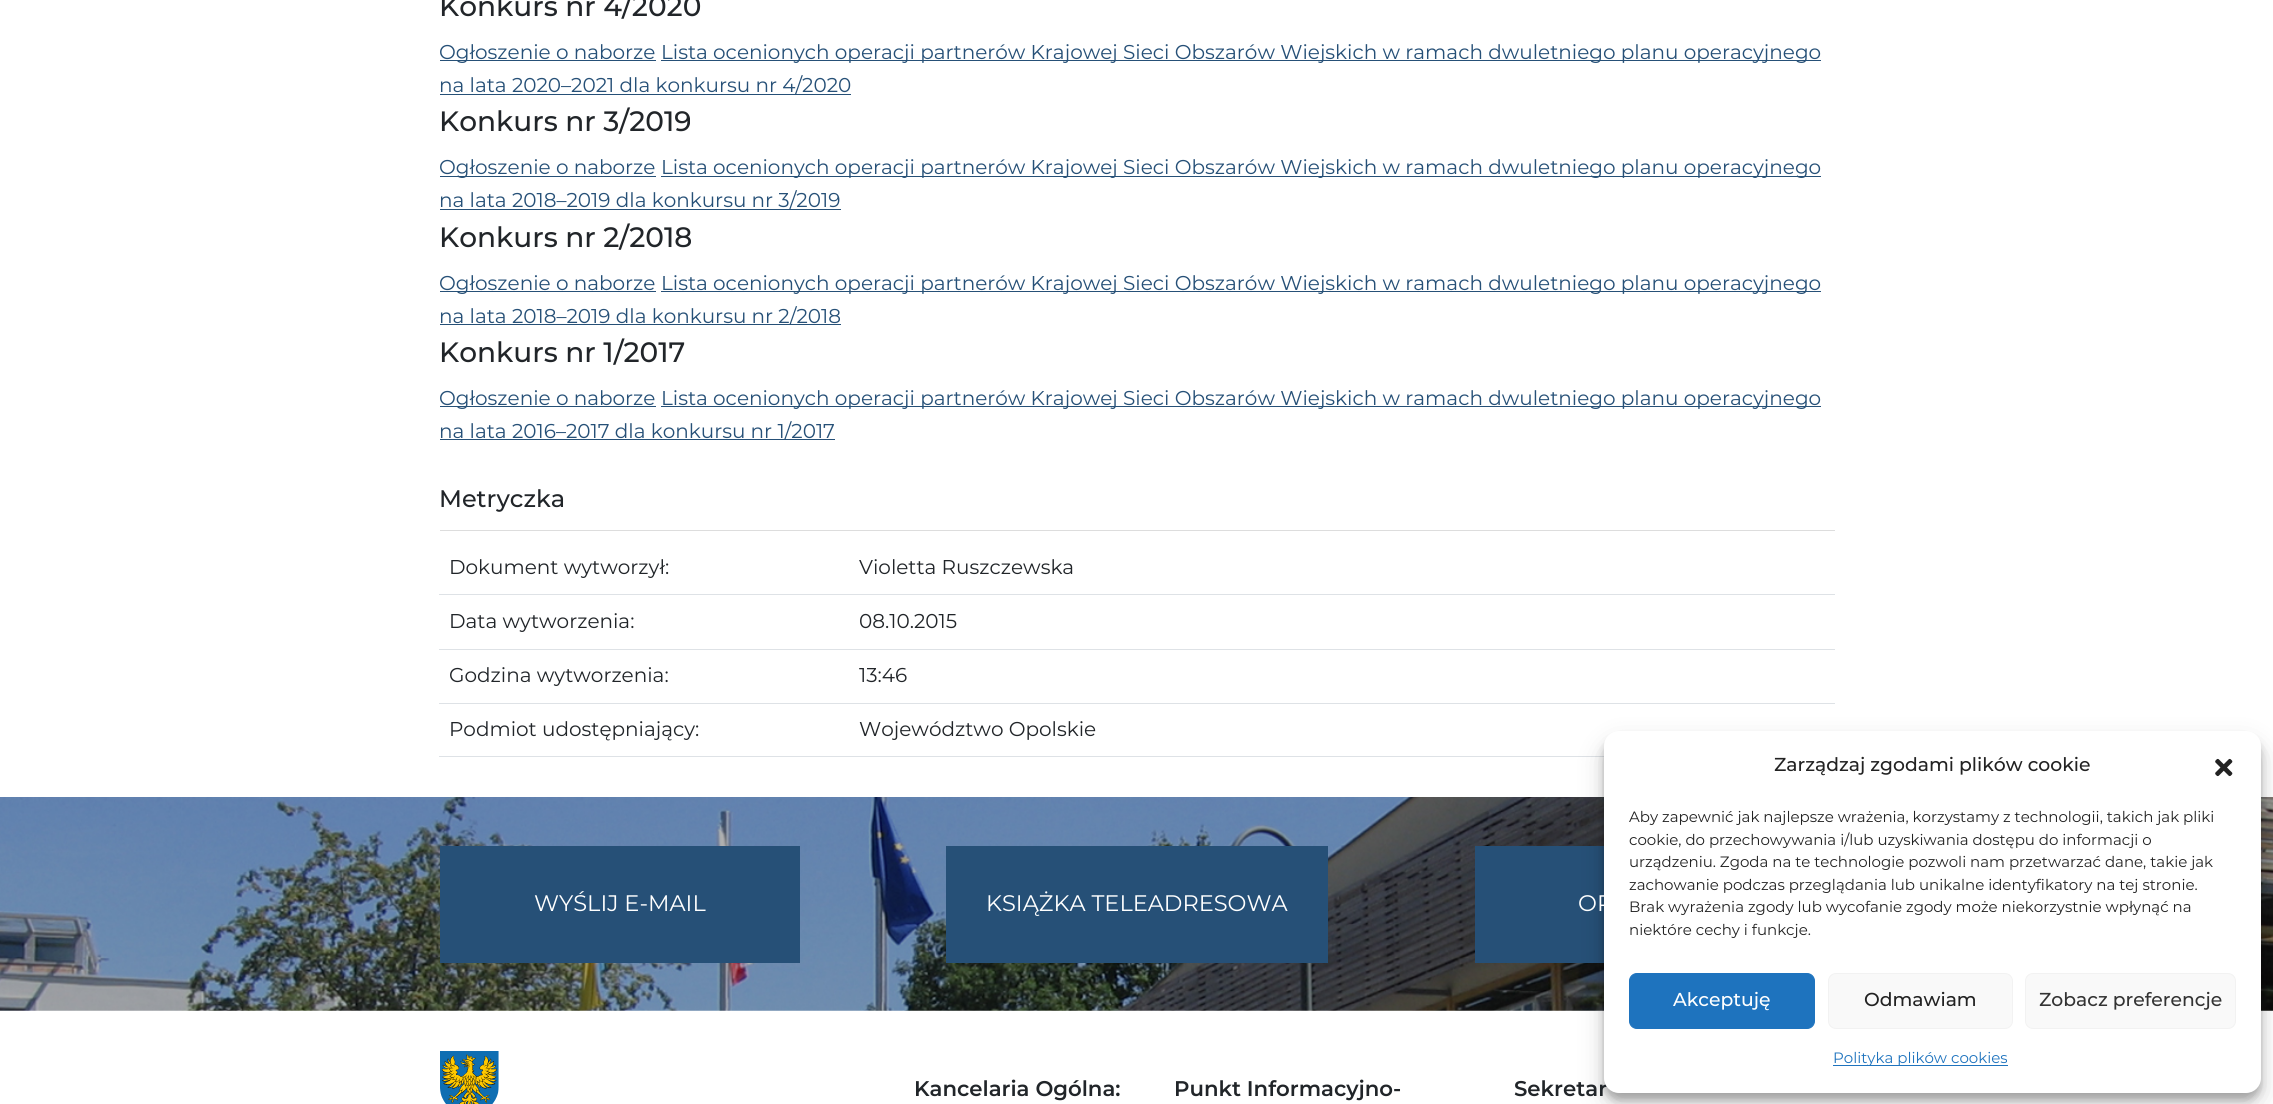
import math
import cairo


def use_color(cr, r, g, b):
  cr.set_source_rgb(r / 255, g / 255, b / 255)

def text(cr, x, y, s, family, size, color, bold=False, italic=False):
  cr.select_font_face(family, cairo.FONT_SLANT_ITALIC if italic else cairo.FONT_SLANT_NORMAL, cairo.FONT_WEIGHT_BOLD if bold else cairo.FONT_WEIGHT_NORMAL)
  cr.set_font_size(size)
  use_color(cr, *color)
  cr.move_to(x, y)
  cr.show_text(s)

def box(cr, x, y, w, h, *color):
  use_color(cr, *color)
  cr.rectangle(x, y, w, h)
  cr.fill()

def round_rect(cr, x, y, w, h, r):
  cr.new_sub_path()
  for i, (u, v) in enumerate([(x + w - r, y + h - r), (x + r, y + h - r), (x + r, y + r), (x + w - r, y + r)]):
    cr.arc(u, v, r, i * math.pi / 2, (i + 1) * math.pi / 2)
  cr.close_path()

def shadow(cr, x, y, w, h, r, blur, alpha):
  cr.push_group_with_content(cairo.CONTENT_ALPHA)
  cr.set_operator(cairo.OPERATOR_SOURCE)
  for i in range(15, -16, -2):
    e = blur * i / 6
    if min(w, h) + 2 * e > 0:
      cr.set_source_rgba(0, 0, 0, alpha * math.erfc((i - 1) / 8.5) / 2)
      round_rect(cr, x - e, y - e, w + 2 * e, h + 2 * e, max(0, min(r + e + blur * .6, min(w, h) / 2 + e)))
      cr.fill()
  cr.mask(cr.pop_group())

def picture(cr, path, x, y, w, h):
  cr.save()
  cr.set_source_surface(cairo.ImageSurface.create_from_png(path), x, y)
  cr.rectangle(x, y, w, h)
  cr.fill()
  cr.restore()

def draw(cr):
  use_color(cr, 255, 255, 255)
  cr.paint()
  box(cr, 440, 60, 216, 1, 38, 80, 119)
  box(cr, 661, 60, 1160, 1, 38, 80, 119)
  box(cr, 440, 94, 411, 1, 38, 80, 119)
  box(cr, 440, 176, 216, 1, 38, 80, 119)
  box(cr, 661, 176, 1160, 1, 38, 80, 119)
  box(cr, 440, 209, 401, 1, 38, 80, 119)
  box(cr, 440, 291, 216, 1, 38, 80, 119)
  box(cr, 661, 291, 1160, 1, 38, 80, 119)
  box(cr, 440, 324, 401, 1, 38, 80, 119)
  box(cr, 440, 406, 216, 1, 38, 80, 119)
  box(cr, 661, 406, 1160, 1, 38, 80, 119)
  box(cr, 440, 439, 395, 1, 38, 80, 119)
  box(cr, 440, 530, 1395, 1, 221, 221, 221)
  box(cr, 439, 594, 1396, 1, 222, 226, 230)
  box(cr, 439, 649, 1396, 1, 222, 226, 230)
  box(cr, 439, 703, 1396, 1, 222, 226, 230)
  box(cr, 439, 756, 1165, 1, 222, 226, 230)
  picture(cr, "img_01.png", 0, 797, 2273, 214)
  box(cr, 440, 846, 360, 117, 38, 80, 119)
  box(cr, 946, 846, 382, 117, 38, 80, 119)
  box(cr, 1475, 846, 129, 117, 38, 80, 119)
  picture(cr, "img_02.png", 440, 1051, 59, 53)
  use_color(cr, 0, 0, 0)
  shadow(cr, 1604, 739, 657, 361, 15, 4, 0.23)
  shadow(cr, 1604, 744, 657, 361, 15, 12.5, 0.19)
  text(cr, 439, 16, "Konkurs nr 4/2020", "Montserrat Medium", 28, (33, 37, 41))
  text(cr, 439, 59, "Ogłoszenie o naborze", "Montserrat", 20, (38, 80, 119))
  text(cr, 661, 59, "Lista ocenionych operacji partnerów Krajowej Sieci Obszarów Wiejskich w ramach dwuletniego planu operacyjnego", "Montserrat", 20, (38, 80, 119))
  text(cr, 439, 92, "na lata 2020–2021 dla konkursu nr 4/2020", "Montserrat", 20, (38, 80, 119))
  text(cr, 439, 131, "Konkurs nr 3/2019", "Montserrat Medium", 28, (33, 37, 41))
  text(cr, 439, 174, "Ogłoszenie o naborze", "Montserrat", 20, (38, 80, 119))
  text(cr, 661, 174, "Lista ocenionych operacji partnerów Krajowej Sieci Obszarów Wiejskich w ramach dwuletniego planu operacyjnego", "Montserrat", 20, (38, 80, 119))
  text(cr, 439, 207, "na lata 2018–2019 dla konkursu nr 3/2019", "Montserrat", 20, (38, 80, 119))
  text(cr, 439, 247, "Konkurs nr 2/2018", "Montserrat Medium", 28, (33, 37, 41))
  text(cr, 439, 290, "Ogłoszenie o naborze", "Montserrat", 20, (38, 80, 119))
  text(cr, 661, 290, "Lista ocenionych operacji partnerów Krajowej Sieci Obszarów Wiejskich w ramach dwuletniego planu operacyjnego", "Montserrat", 20, (38, 80, 119))
  text(cr, 439, 323, "na lata 2018–2019 dla konkursu nr 2/2018", "Montserrat", 20, (38, 80, 119))
  text(cr, 439, 362, "Konkurs nr 1/2017", "Montserrat Medium", 28, (33, 37, 41))
  text(cr, 439, 405, "Ogłoszenie o naborze", "Montserrat", 20, (38, 80, 119))
  text(cr, 661, 405, "Lista ocenionych operacji partnerów Krajowej Sieci Obszarów Wiejskich w ramach dwuletniego planu operacyjnego", "Montserrat", 20, (38, 80, 119))
  text(cr, 439, 438, "na lata 2016–2017 dla konkursu nr 1/2017", "Montserrat", 20, (38, 80, 119))
  text(cr, 439, 507, "Metryczka", "Montserrat Medium", 24, (33, 37, 41))
  text(cr, 449, 574, "Dokument wytworzył:", "Montserrat", 20, (33, 37, 41))
  text(cr, 859, 574, "Violetta Ruszczewska", "Montserrat", 20, (33, 37, 41))
  text(cr, 449, 628, "Data wytworzenia:", "Montserrat", 20, (33, 37, 41))
  text(cr, 859, 628, "08.10.2015", "Montserrat", 20, (33, 37, 41))
  text(cr, 449, 682, "Godzina wytworzenia:", "Montserrat", 20, (33, 37, 41))
  text(cr, 859, 682, "13:46", "Montserrat", 20, (33, 37, 41))
  text(cr, 449, 736, "Podmiot udostępniający:", "Montserrat", 20, (33, 37, 41))
  text(cr, 859, 736, "Województwo Opolskie", "Montserrat", 20, (33, 37, 41))
  text(cr, 534, 911, "WYŚLIJ E-MAIL", "Montserrat", 22.5, (255, 255, 255))
  text(cr, 986, 911, "KSIĄŻKA TELEADRESOWA", "Montserrat", 22.5, (255, 255, 255))
  text(cr, 1578, 911, "OP", "Montserrat", 22.5, (255, 255, 255))
  text(cr, 914, 1096, "Kancelaria Ogólna:", "Montserrat SemiBold", 21.25, (33, 37, 41))
  text(cr, 1174, 1096, "Punkt Informacyjno-", "Montserrat SemiBold", 21.25, (33, 37, 41))
  text(cr, 1514, 1096, "Sekretar", "Montserrat SemiBold", 21.25, (33, 37, 41))
  use_color(cr, 255, 255, 255)
  round_rect(cr, 1604, 731, 657, 362, 15)
  cr.fill()
  text(cr, 1774, 771, "Zarządzaj zgodami plików cookie", "Montserrat Medium", 18.75, (34, 34, 34))
  picture(cr, "img_03.png", 2215, 758, 18, 19)
  text(cr, 1629, 822, "Aby zapewnić jak najlepsze wrażenia, korzystamy z technologii, takich jak pliki", "Montserrat", 15, (34, 34, 34))
  text(cr, 1629, 845, "cookie, do przechowywania i/lub uzyskiwania dostępu do informacji o", "Montserrat", 15, (34, 34, 34))
  text(cr, 1629, 867, "urządzeniu. Zgoda na te technologie pozwoli nam przetwarzać dane, takie jak", "Montserrat", 15, (34, 34, 34))
  text(cr, 1629, 890, "zachowanie podczas przeglądania lub unikalne identyfikatory na tej stronie.", "Montserrat", 15, (34, 34, 34))
  text(cr, 1629, 912, "Brak wyrażenia zgody lub wycofanie zgody może niekorzystnie wpłynąć na", "Montserrat", 15, (34, 34, 34))
  text(cr, 1629, 935, "niektóre cechy i funkcje.", "Montserrat", 15, (34, 34, 34))
  use_color(cr, 30, 115, 190)
  round_rect(cr, 1629.5, 973.5, 185, 55, 7.5)
  cr.fill_preserve()
  cr.set_line_width(1)
  cr.stroke()
  text(cr, 1673, 1006, "Akceptuję", "Montserrat Medium", 18.75, (255, 255, 255))
  use_color(cr, 249, 249, 249)
  round_rect(cr, 1828.5, 973.5, 184, 55, 7.5)
  cr.fill_preserve()
  use_color(cr, 242, 242, 242)
  cr.stroke()
  text(cr, 1864, 1006, "Odmawiam", "Montserrat Medium", 18.75, (34, 34, 34))
  use_color(cr, 249, 249, 249)
  round_rect(cr, 2025.5, 973.5, 210, 55, 7.5)
  cr.fill_preserve()
  use_color(cr, 242, 242, 242)
  cr.stroke()
  text(cr, 2039, 1006, "Zobacz preferencje", "Montserrat Medium", 18.75, (51, 51, 51))
  box(cr, 1833, 1065, 175, 1, 30, 115, 190)
  text(cr, 1833, 1063, "Polityka plików cookies", "Montserrat", 15, (30, 115, 190))


surface = cairo.ImageSurface(cairo.FORMAT_RGB24, 2273, 1104)
cr = cairo.Context(surface)
options = cairo.FontOptions()
options.set_hint_metrics(cairo.HINT_METRICS_OFF)
options.set_hint_style(cairo.HINT_STYLE_NONE)
cr.set_font_options(options)
cr.set_miter_limit(4)
draw(cr)
surface.write_to_png("out.png")
